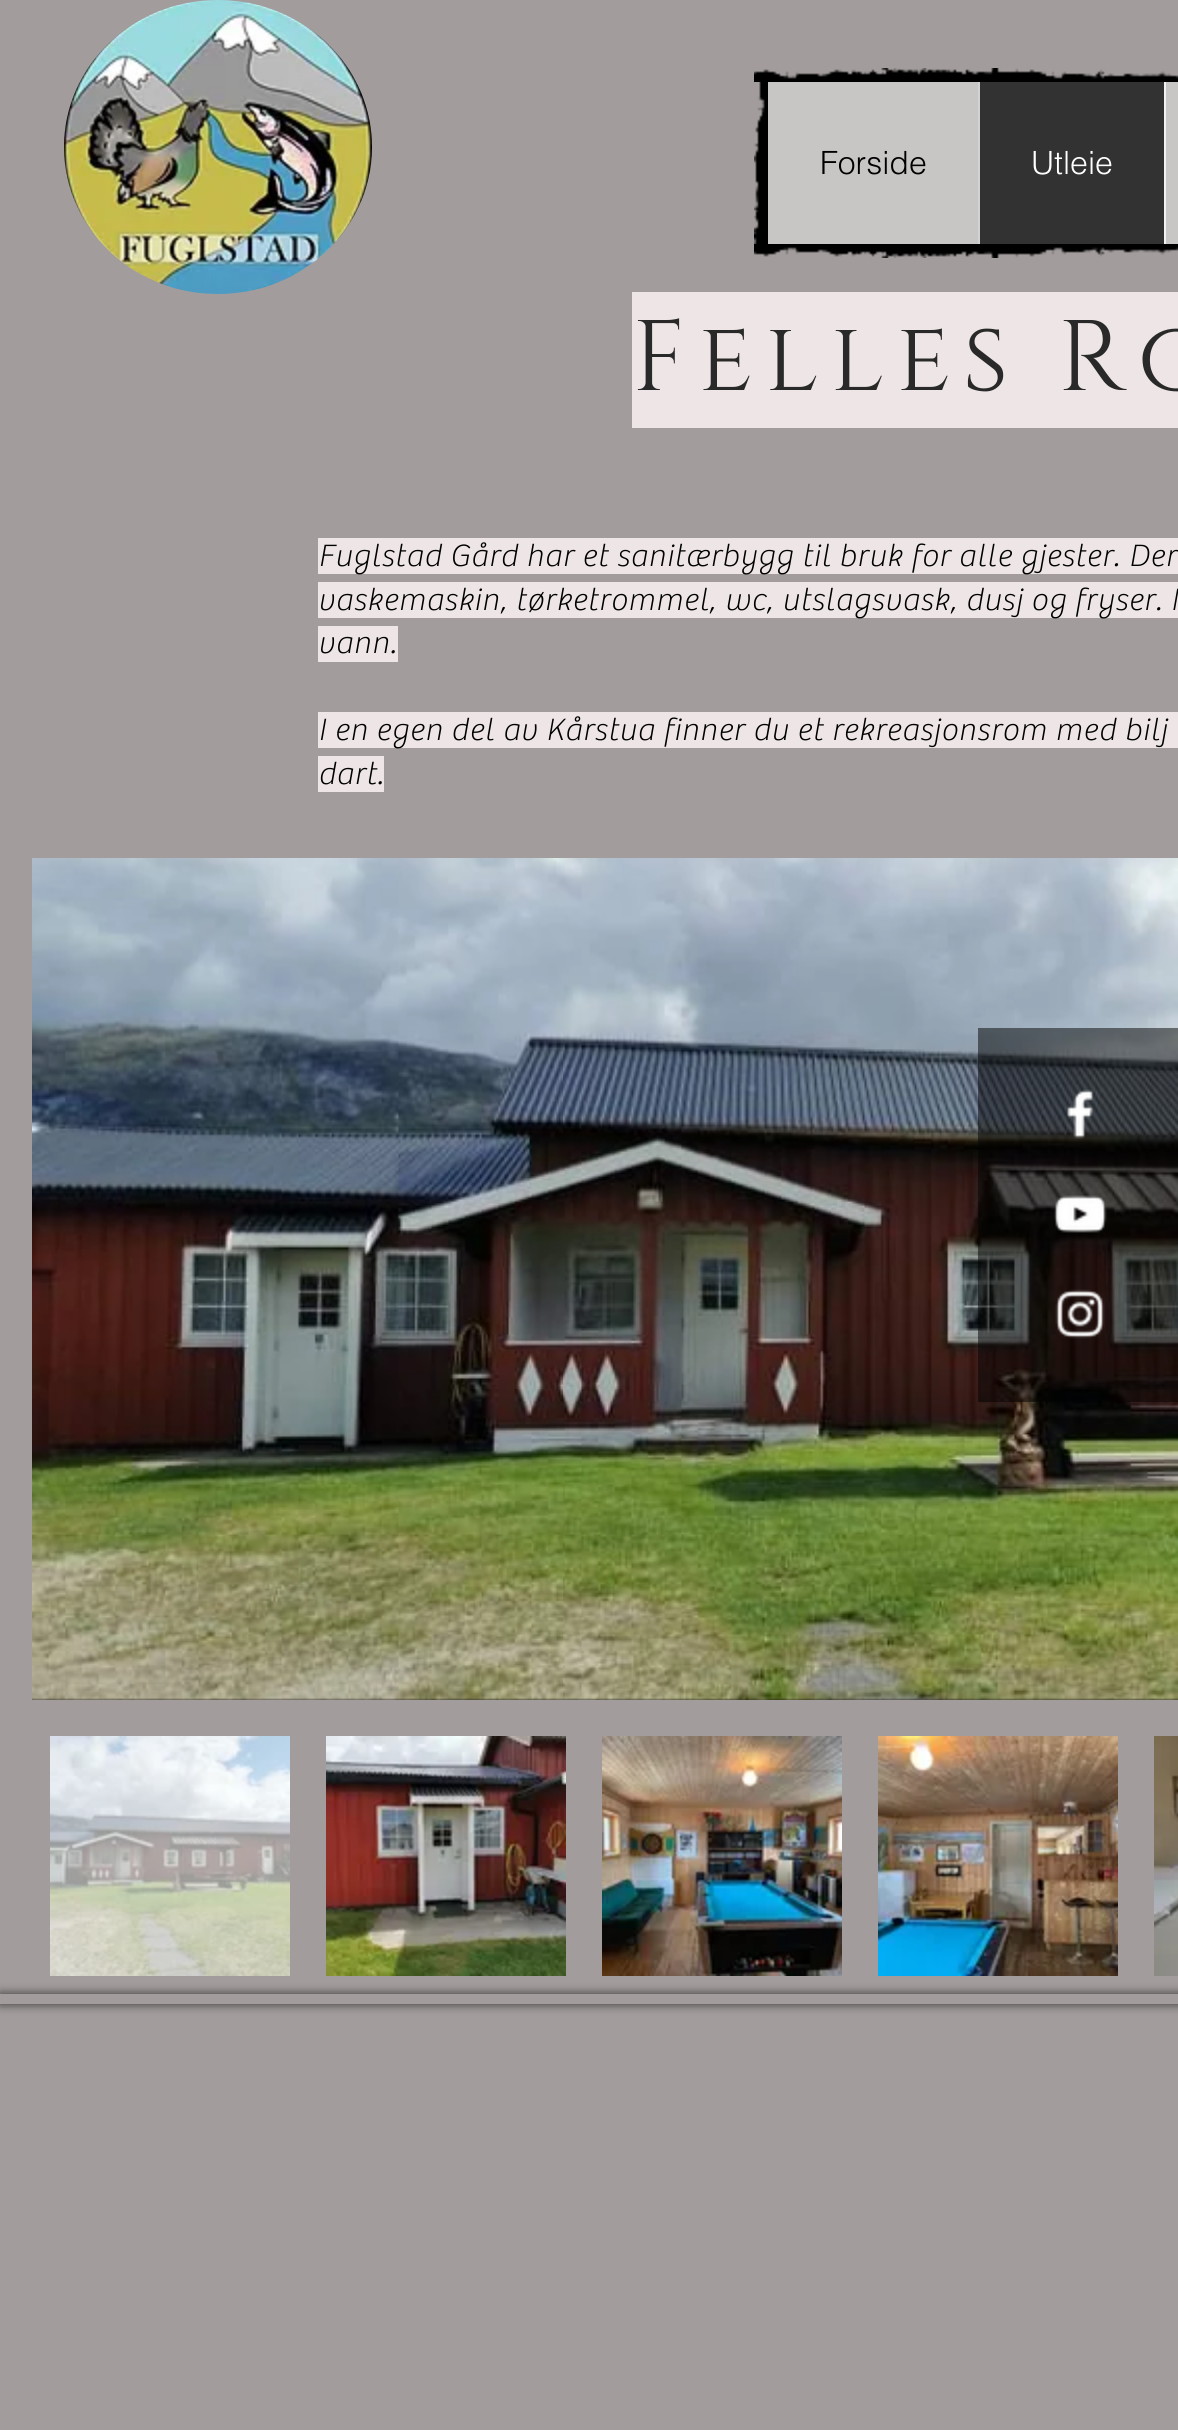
import math
import cairo


def use_color(cr, r, g, b):
  cr.set_source_rgb(r / 255, g / 255, b / 255)

def text(cr, x, y, s, family, size, color, bold=False, italic=False):
  cr.select_font_face(family, cairo.FONT_SLANT_ITALIC if italic else cairo.FONT_SLANT_NORMAL, cairo.FONT_WEIGHT_BOLD if bold else cairo.FONT_WEIGHT_NORMAL)
  cr.set_font_size(size)
  use_color(cr, *color)
  cr.move_to(x, y)
  cr.show_text(s)

def spaced_text(cr, x, y, s, letter, word):
  cr.move_to(x, y)
  for ch in s:
    cr.show_text(ch)
    cr.rel_move_to(letter + word * (ch == ' '), 0)

def box(cr, x, y, w, h, *color):
  use_color(cr, *color)
  cr.rectangle(x, y, w, h)
  cr.fill()

def round_rect(cr, x, y, w, h, r):
  cr.new_sub_path()
  for i, (u, v) in enumerate([(x + w - r, y + h - r), (x + r, y + h - r), (x + r, y + r), (x + w - r, y + r)]):
    cr.arc(u, v, r, i * math.pi / 2, (i + 1) * math.pi / 2)
  cr.close_path()

def shadow(cr, x, y, w, h, r, blur, alpha):
  cr.push_group_with_content(cairo.CONTENT_ALPHA)
  cr.set_operator(cairo.OPERATOR_SOURCE)
  for i in range(15, -16, -2):
    e = blur * i / 6
    if min(w, h) + 2 * e > 0:
      cr.set_source_rgba(0, 0, 0, alpha * math.erfc((i - 1) / 8.5) / 2)
      round_rect(cr, x - e, y - e, w + 2 * e, h + 2 * e, max(0, min(r + e + blur * .6, min(w, h) / 2 + e)))
      cr.fill()
  cr.mask(cr.pop_group())

def picture(cr, path, x, y, w, h):
  cr.save()
  cr.set_source_surface(cairo.ImageSurface.create_from_png(path), x, y)
  cr.rectangle(x, y, w, h)
  cr.fill()
  cr.restore()

def draw(cr):
  use_color(cr, 162, 156, 156)
  cr.paint()
  picture(cr, "img_01.png", 64, 0, 308, 294)
  picture(cr, "img_02.png", 754, 68, 424, 14)
  picture(cr, "img_03.png", 754, 82, 14, 162)
  box(cr, 768, 82, 410, 162, 200, 197, 197)
  box(cr, 980, 82, 184, 162, 50, 50, 50)
  box(cr, 978, 82, 2, 162, 210, 210, 210)
  box(cr, 1164, 82, 2, 162, 243, 242, 242)
  picture(cr, "img_04.png", 754, 244, 424, 14)
  box(cr, 632, 292, 546, 136, 238, 230, 230)
  box(cr, 318, 538, 860, 36, 238, 230, 230)
  box(cr, 318, 582, 860, 36, 238, 230, 230)
  box(cr, 318, 626, 80, 36, 238, 230, 230)
  box(cr, 318, 712, 860, 36, 238, 230, 230)
  box(cr, 318, 756, 66, 36, 238, 230, 230)
  box(cr, 32, 1698, 1146, 2, 20, 20, 20)
  picture(cr, "img_05.png", 32, 858, 1146, 842)
  picture(cr, "img_06.png", 50, 1736, 240, 240)
  picture(cr, "img_07.png", 326, 1736, 240, 240)
  picture(cr, "img_08.png", 602, 1736, 240, 240)
  picture(cr, "img_09.png", 878, 1736, 240, 240)
  picture(cr, "img_10.png", 1154, 1736, 24, 240)
  cr.set_source_rgba(0.008, 0.008, 0.008, 0.5)
  cr.rectangle(978, 1028, 200, 374)
  cr.fill()
  picture(cr, "img_11.png", 1067, 1089, 27, 50)
  picture(cr, "img_12.png", 1054, 1195, 53, 38)
  picture(cr, "img_13.png", 1055, 1289, 50, 50)
  cr.save()
  cr.set_fill_rule(cairo.FILL_RULE_EVEN_ODD)
  cr.new_path()
  cr.move_to(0, 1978)
  cr.line_to(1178, 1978)
  cr.line_to(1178, 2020)
  cr.line_to(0, 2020)
  cr.close_path()
  cr.move_to(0, 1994)
  cr.line_to(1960, 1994)
  cr.line_to(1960, 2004)
  cr.line_to(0, 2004)
  cr.close_path()
  cr.clip()
  use_color(cr, 2, 2, 2)
  shadow(cr, 0, 1994, 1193, 10, 0, 5, 0.7)
  cr.restore()
  text(cr, 820, 174, "Forside", "helvetica Light", 32, (0, 0, 0))
  text(cr, 1031, 174, "Utleie", "helvetica Light", 32, (255, 255, 255))
  cr.select_font_face("Cinzel")
  cr.set_font_size(100)
  use_color(cr, 41, 41, 41)
  spaced_text(cr, 632, 390, "Felles Ro", 12, 0)
  cr.select_font_face("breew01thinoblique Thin")
  cr.set_font_size(32)
  use_color(cr, 0, 0, 0)
  spaced_text(cr, 318, 566, "Fuglstad Gård har et sanitærbygg til bruk for alle gjester. Der", 0.95, 0)
  spaced_text(cr, 318, 610, "vaskemaskin, tørketrommel, wc, utslagsvask, dusj og fryser. I", 0.95, 0)
  spaced_text(cr, 318, 653, "vann.", 0.95, 0)
  spaced_text(cr, 318, 740, "I en egen del av Kårstua finner du et rekreasjonsrom med bilj", 0.95, 0)
  spaced_text(cr, 318, 784, "dart.", 0.95, 0)


surface = cairo.ImageSurface(cairo.FORMAT_RGB24, 1178, 2430)
cr = cairo.Context(surface)
options = cairo.FontOptions()
options.set_hint_metrics(cairo.HINT_METRICS_OFF)
options.set_hint_style(cairo.HINT_STYLE_NONE)
cr.set_font_options(options)
cr.set_miter_limit(4)
draw(cr)
surface.write_to_png("out.png")
